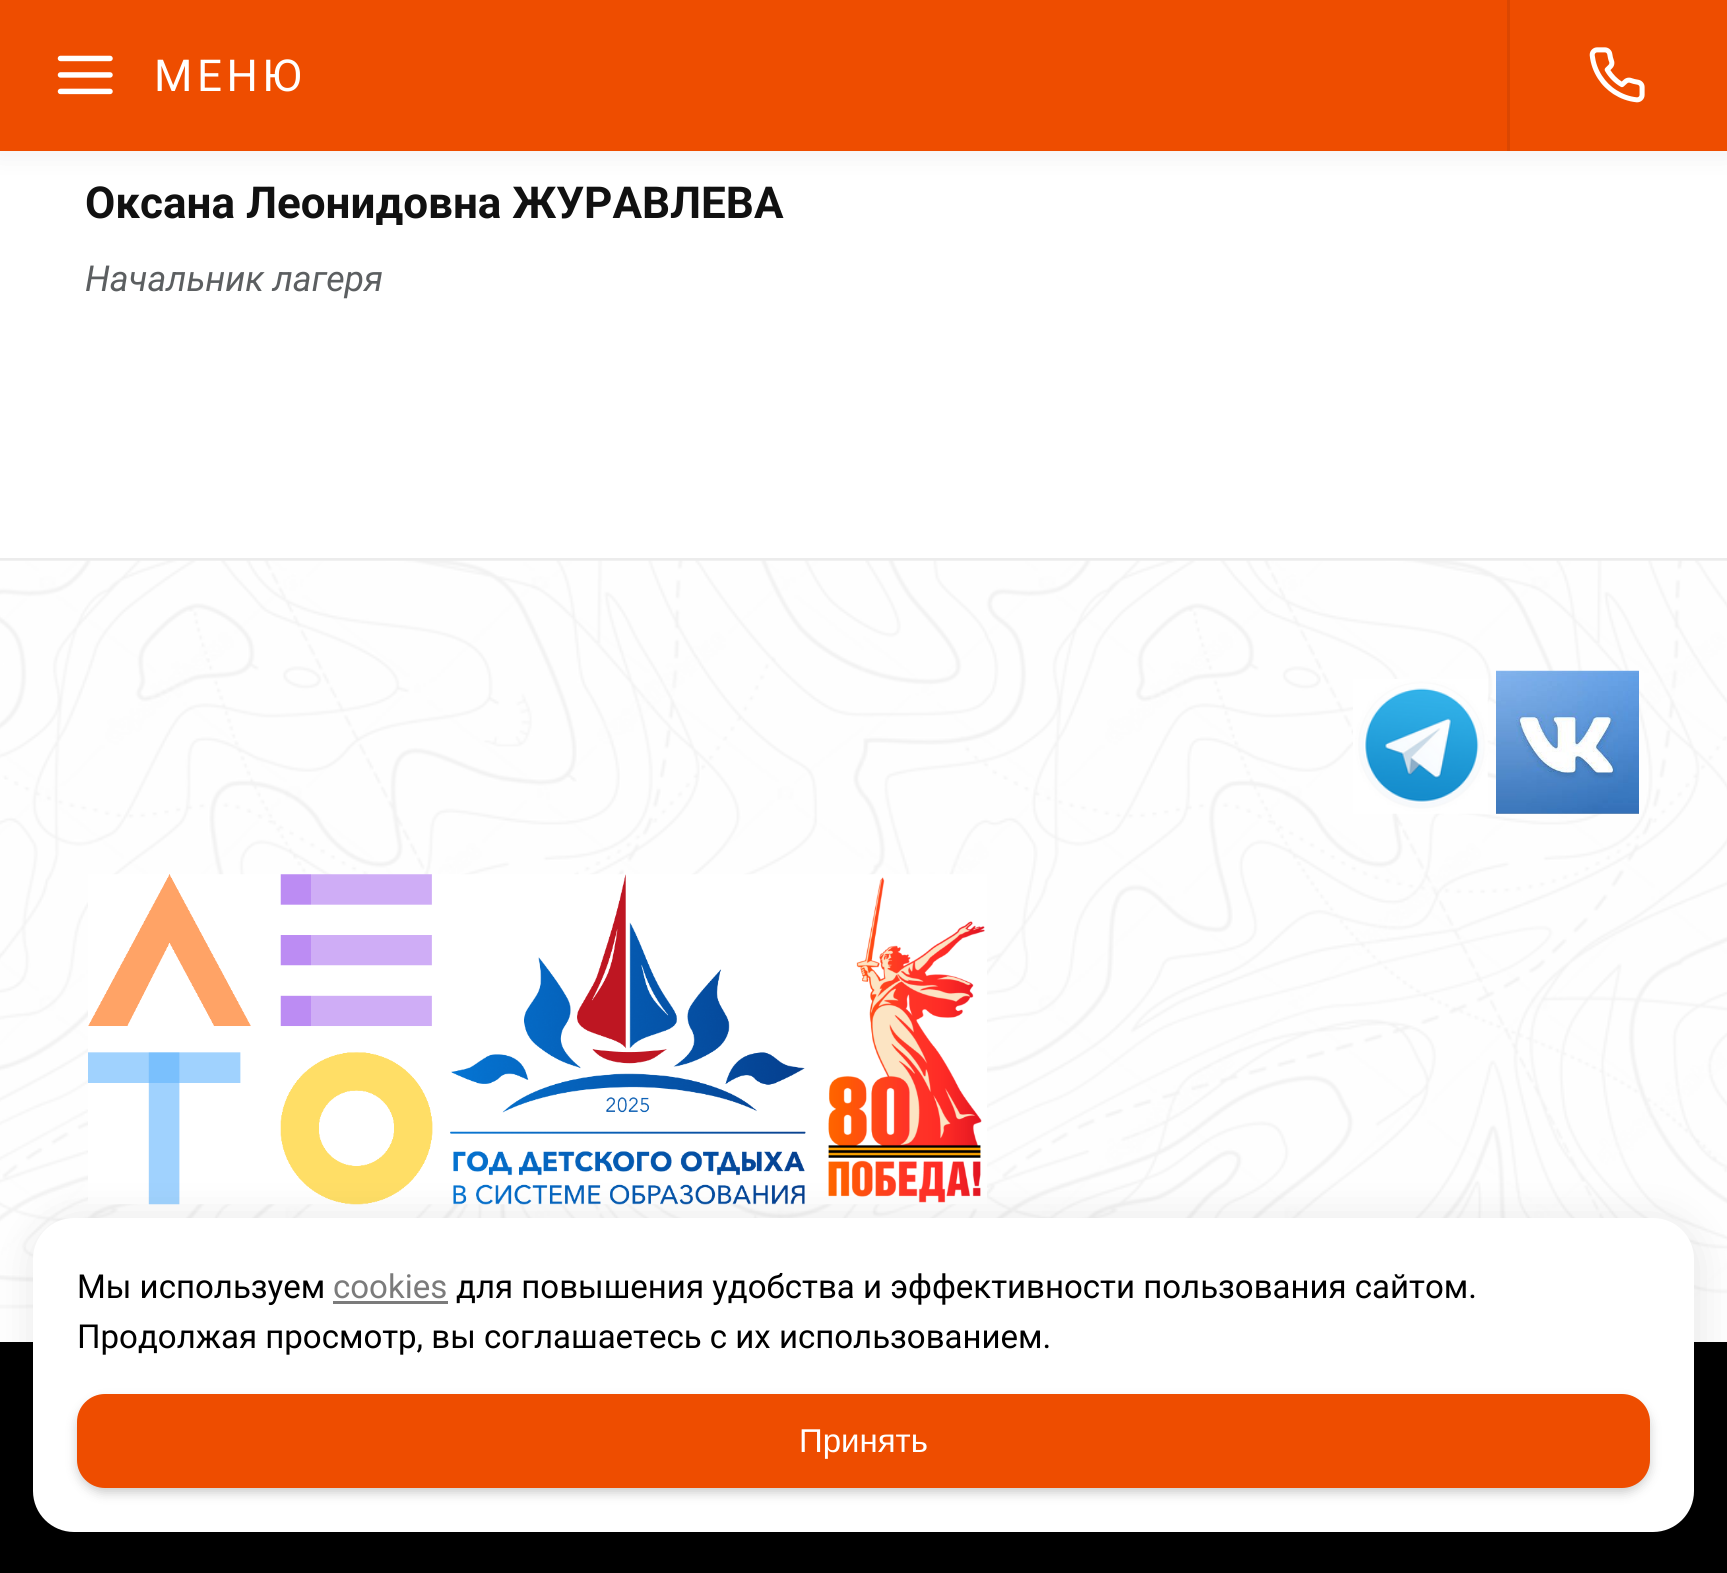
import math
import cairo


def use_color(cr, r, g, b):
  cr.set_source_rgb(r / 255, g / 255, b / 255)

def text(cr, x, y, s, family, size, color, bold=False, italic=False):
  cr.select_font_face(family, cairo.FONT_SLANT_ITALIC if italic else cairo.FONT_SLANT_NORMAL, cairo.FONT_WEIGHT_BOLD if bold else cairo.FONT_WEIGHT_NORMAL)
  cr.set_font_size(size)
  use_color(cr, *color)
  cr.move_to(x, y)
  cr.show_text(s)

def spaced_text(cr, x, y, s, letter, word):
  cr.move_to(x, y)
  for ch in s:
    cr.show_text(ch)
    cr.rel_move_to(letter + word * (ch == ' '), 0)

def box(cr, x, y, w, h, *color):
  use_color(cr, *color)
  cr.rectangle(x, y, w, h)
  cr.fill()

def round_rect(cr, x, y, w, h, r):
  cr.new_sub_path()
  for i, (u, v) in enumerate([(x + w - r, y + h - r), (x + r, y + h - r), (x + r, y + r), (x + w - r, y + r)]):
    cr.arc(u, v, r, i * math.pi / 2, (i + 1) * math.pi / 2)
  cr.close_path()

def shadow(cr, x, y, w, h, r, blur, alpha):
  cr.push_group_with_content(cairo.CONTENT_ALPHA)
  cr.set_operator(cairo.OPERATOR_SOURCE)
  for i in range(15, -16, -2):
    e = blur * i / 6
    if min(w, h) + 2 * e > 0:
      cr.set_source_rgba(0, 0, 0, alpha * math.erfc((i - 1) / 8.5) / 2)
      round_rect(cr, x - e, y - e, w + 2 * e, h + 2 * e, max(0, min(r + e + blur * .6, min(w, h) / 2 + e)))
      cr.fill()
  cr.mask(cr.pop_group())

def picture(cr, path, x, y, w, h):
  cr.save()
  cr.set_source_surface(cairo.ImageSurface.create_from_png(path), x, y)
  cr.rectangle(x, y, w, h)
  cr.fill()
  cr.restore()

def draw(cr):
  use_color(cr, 255, 255, 255)
  cr.paint()
  use_color(cr, 16, 15, 28)
  shadow(cr, -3, -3, 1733, 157, 0, 14, 0.07)
  box(cr, 0, 0, 1727, 151, 238, 77, 0)
  picture(cr, "img_01.png", 57, 55, 56, 40)
  box(cr, 1507, 0, 3, 151, 218, 71, 2)
  picture(cr, "img_02.png", 1589, 47, 56, 56)
  box(cr, 0, 558, 1727, 3, 236, 236, 236)
  picture(cr, "img_03.png", 0, 560, 1727, 782)
  picture(cr, "img_04.png", 1353, 679, 135, 135)
  picture(cr, "img_05.png", 1496, 670, 143, 144)
  picture(cr, "img_06.png", 88, 874, 899, 331)
  box(cr, 0, 1342, 1727, 231, 0, 0, 0)
  use_color(cr, 0, 0, 0)
  shadow(cr, 36, 1221, 1661, 314, 41, 20.5, 0.1)
  use_color(cr, 255, 255, 255)
  round_rect(cr, 33, 1218, 1661, 314, 41)
  cr.fill()
  box(cr, 333, 1301, 115, 3, 123, 123, 123)
  use_color(cr, 0, 0, 0)
  shadow(cr, 77, 1400, 1573, 93, 28, 5.5, 0.2)
  use_color(cr, 238, 77, 0)
  round_rect(cr, 77, 1394, 1573, 94, 28)
  cr.fill()
  cr.select_font_face("Roboto")
  cr.set_font_size(44)
  use_color(cr, 255, 255, 255)
  spaced_text(cr, 154, 91, "МЕНЮ", 4.5, 0)
  text(cr, 85, 218, "Оксана Леонидовна ЖУРАВЛЕВА", "Roboto", 44, (17, 17, 17), bold=True)
  text(cr, 85, 291, "Начальник лагеря", "Roboto", 35.75, (92, 95, 97), italic=True)
  text(cr, 77, 1298, "Мы используем", "Roboto", 33, (0, 0, 0))
  text(cr, 333, 1298, "cookies", "Roboto", 33, (123, 123, 123))
  text(cr, 456, 1298, "для повышения удобства и эффективности пользования сайтом.", "Roboto", 33, (0, 0, 0))
  text(cr, 77, 1348, "Продолжая просмотр, вы соглашаетесь с их использованием.", "Roboto", 33, (0, 0, 0))
  text(cr, 799, 1452, "Принять", "Liberation Sans", 33, (255, 255, 255))


surface = cairo.ImageSurface(cairo.FORMAT_RGB24, 1727, 1573)
cr = cairo.Context(surface)
options = cairo.FontOptions()
options.set_hint_metrics(cairo.HINT_METRICS_OFF)
options.set_hint_style(cairo.HINT_STYLE_NONE)
cr.set_font_options(options)
cr.set_miter_limit(4)
draw(cr)
surface.write_to_png("out.png")
